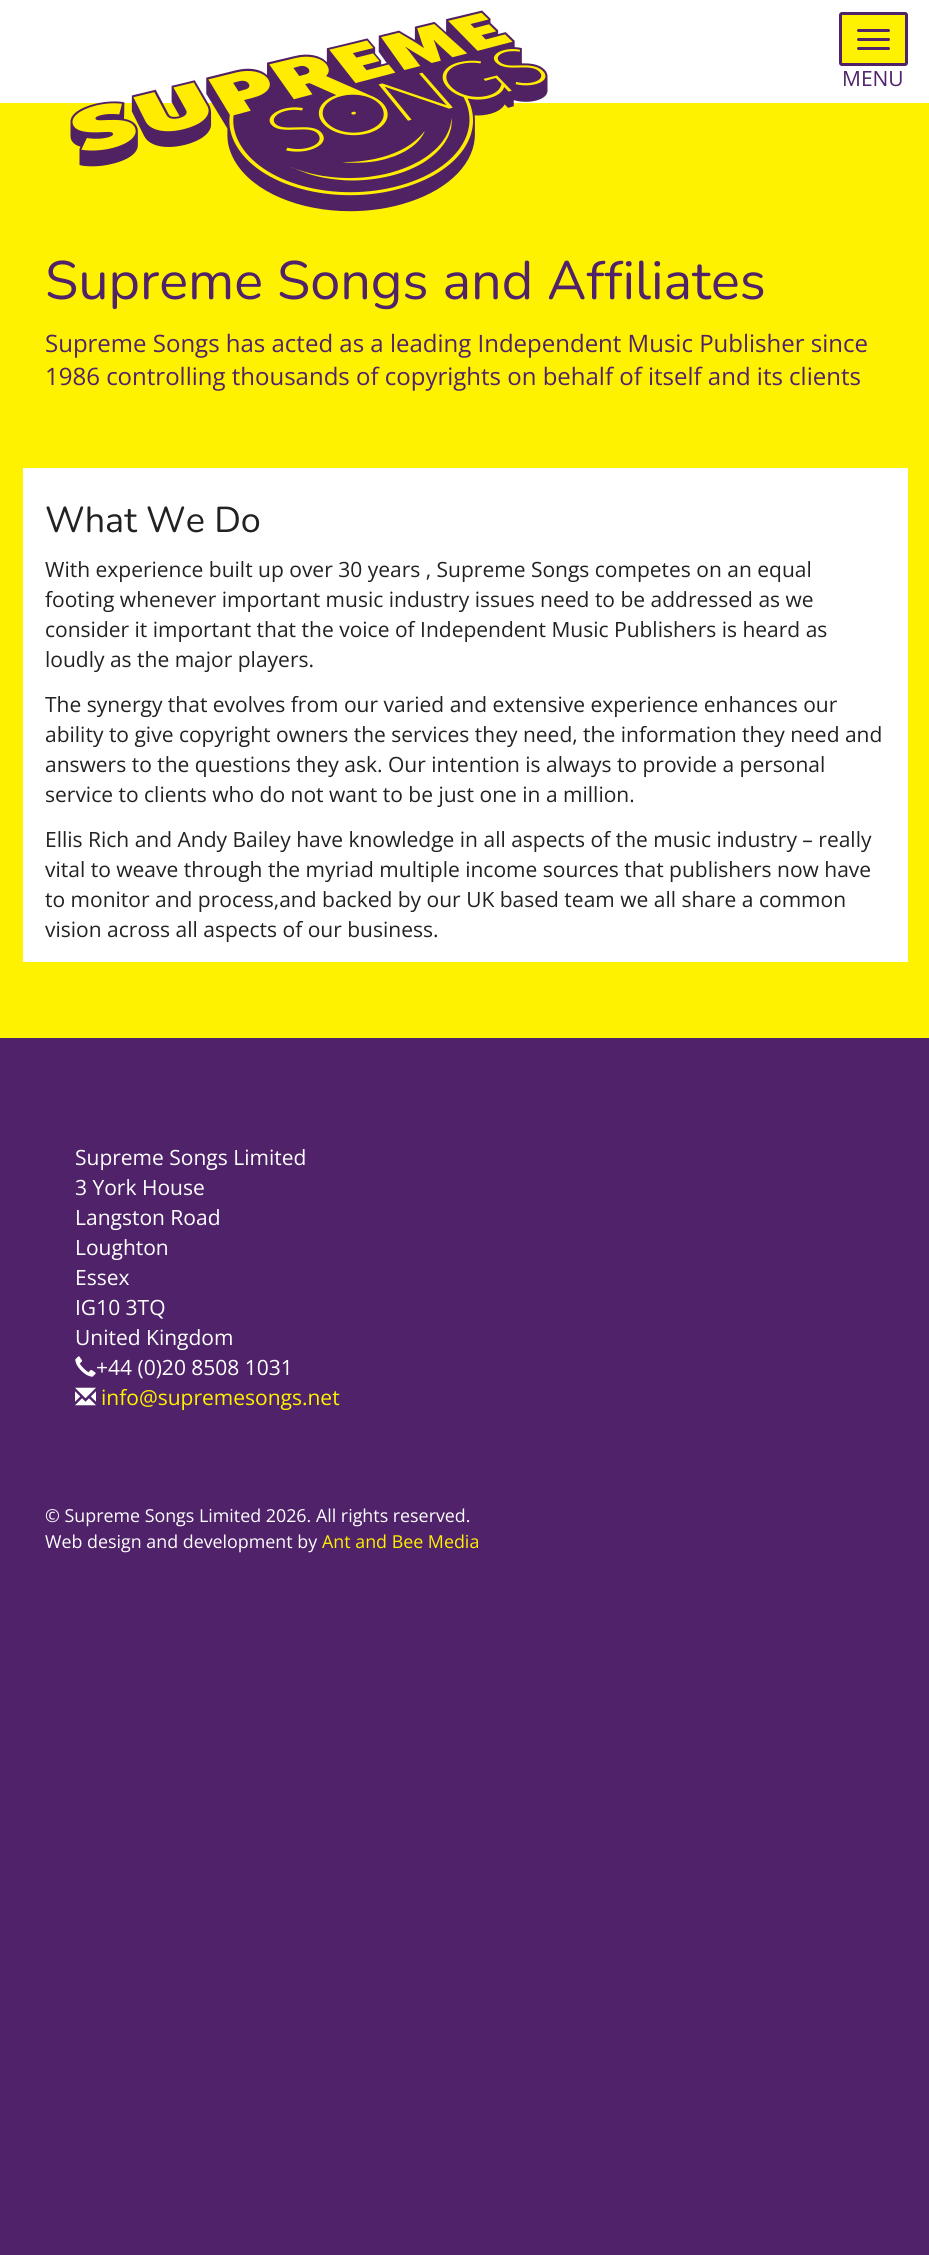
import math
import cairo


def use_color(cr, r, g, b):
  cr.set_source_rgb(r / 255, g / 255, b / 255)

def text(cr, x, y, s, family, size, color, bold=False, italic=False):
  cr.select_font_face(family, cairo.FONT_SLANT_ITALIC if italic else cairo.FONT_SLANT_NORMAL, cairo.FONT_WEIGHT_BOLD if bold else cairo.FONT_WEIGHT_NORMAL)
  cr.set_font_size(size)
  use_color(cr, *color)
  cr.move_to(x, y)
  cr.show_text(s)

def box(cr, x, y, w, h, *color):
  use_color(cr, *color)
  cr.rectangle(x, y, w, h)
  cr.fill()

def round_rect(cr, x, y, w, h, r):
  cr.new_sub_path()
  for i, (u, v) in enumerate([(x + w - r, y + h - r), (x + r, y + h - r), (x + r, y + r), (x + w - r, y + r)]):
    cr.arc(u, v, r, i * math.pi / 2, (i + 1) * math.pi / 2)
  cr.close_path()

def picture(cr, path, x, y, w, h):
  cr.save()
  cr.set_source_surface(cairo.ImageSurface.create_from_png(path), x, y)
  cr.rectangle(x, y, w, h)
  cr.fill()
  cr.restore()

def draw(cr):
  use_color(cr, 79, 34, 105)
  cr.paint()
  box(cr, 0, 0, 929, 103, 255, 255, 255)
  box(cr, 0, 103, 929, 935, 255, 242, 0)
  picture(cr, "img_01.png", 70, 10, 478, 202)
  round_rect(cr, 840.5, 13.5, 66, 51, 1.5)
  cr.fill_preserve()
  use_color(cr, 79, 34, 105)
  cr.set_line_width(3)
  cr.stroke()
  round_rect(cr, 857, 29, 33, 3, 1.5)
  cr.fill()
  round_rect(cr, 857, 38, 33, 3, 1.5)
  cr.fill()
  round_rect(cr, 857, 47, 33, 3, 1.5)
  cr.fill()
  box(cr, 23, 468, 885, 494, 255, 255, 255)
  picture(cr, "img_02.png", 75, 1356, 21, 21)
  picture(cr, "img_03.png", 75, 1387, 21, 19)
  text(cr, 842, 86, "MENU", "Open Sans", 21, (79, 34, 105))
  text(cr, 45, 299, "Supreme Songs and Affiliates", "Nunito", 54, (79, 34, 105))
  text(cr, 45, 352, "Supreme Songs has acted as a leading Independent Music Publisher since", "Open Sans", 24, (79, 34, 105))
  text(cr, 45, 385, "1986 controlling thousands of copyrights on behalf of itself and its clients", "Open Sans", 24, (79, 34, 105))
  text(cr, 45, 532, "What We Do", "Nunito", 36, (34, 34, 34))
  text(cr, 45, 577, "With experience built up over 30 years , Supreme Songs competes on an equal", "Open Sans", 21, (34, 34, 34))
  text(cr, 45, 607, "footing whenever important music industry issues need to be addressed as we", "Open Sans", 21, (34, 34, 34))
  text(cr, 45, 637, "consider it important that the voice of Independent Music Publishers is heard as", "Open Sans", 21, (34, 34, 34))
  text(cr, 45, 667, "loudly as the major players.", "Open Sans", 21, (34, 34, 34))
  text(cr, 45, 712, "The synergy that evolves from our varied and extensive experience enhances our", "Open Sans", 21, (34, 34, 34))
  text(cr, 45, 742, "ability to give copyright owners the services they need, the information they need and", "Open Sans", 21, (34, 34, 34))
  text(cr, 45, 772, "answers to the questions they ask. Our intention is always to provide a personal", "Open Sans", 21, (34, 34, 34))
  text(cr, 45, 802, "service to clients who do not want to be just one in a million.", "Open Sans", 21, (34, 34, 34))
  text(cr, 45, 847, "Ellis Rich and Andy Bailey have knowledge in all aspects of the music industry – really", "Open Sans", 21, (34, 34, 34))
  text(cr, 45, 877, "vital to weave through the myriad multiple income sources that publishers now have", "Open Sans", 21, (34, 34, 34))
  text(cr, 45, 907, "to monitor and process,and backed by our UK based team we all share a common", "Open Sans", 21, (34, 34, 34))
  text(cr, 45, 937, "vision across all aspects of our business.", "Open Sans", 21, (34, 34, 34))
  text(cr, 75, 1165, "Supreme Songs Limited", "Open Sans", 21, (255, 255, 255))
  text(cr, 75, 1195, "3 York House", "Open Sans", 21, (255, 255, 255))
  text(cr, 75, 1225, "Langston Road", "Open Sans", 21, (255, 255, 255))
  text(cr, 75, 1255, "Loughton", "Open Sans", 21, (255, 255, 255))
  text(cr, 75, 1285, "Essex", "Open Sans", 21, (255, 255, 255))
  text(cr, 75, 1315, "IG10 3TQ", "Open Sans", 21, (255, 255, 255))
  text(cr, 75, 1345, "United Kingdom", "Open Sans", 21, (255, 255, 255))
  text(cr, 96, 1375, "+44 (0)20 8508 1031", "Open Sans", 21, (255, 255, 255))
  text(cr, 101, 1405, "info@supremesongs.net", "Open Sans", 21, (255, 242, 0))
  text(cr, 45, 1522, "© Supreme Songs Limited 2026. All rights reserved.", "Open Sans", 17.85, (255, 255, 255))
  text(cr, 45, 1548, "Web design and development by", "Open Sans", 17.85, (255, 255, 255))
  text(cr, 322, 1548, "Ant and Bee Media", "Open Sans", 17.85, (255, 242, 0))


surface = cairo.ImageSurface(cairo.FORMAT_RGB24, 929, 2255)
cr = cairo.Context(surface)
options = cairo.FontOptions()
options.set_hint_metrics(cairo.HINT_METRICS_OFF)
options.set_hint_style(cairo.HINT_STYLE_NONE)
cr.set_font_options(options)
cr.set_miter_limit(4)
draw(cr)
surface.write_to_png("out.png")
